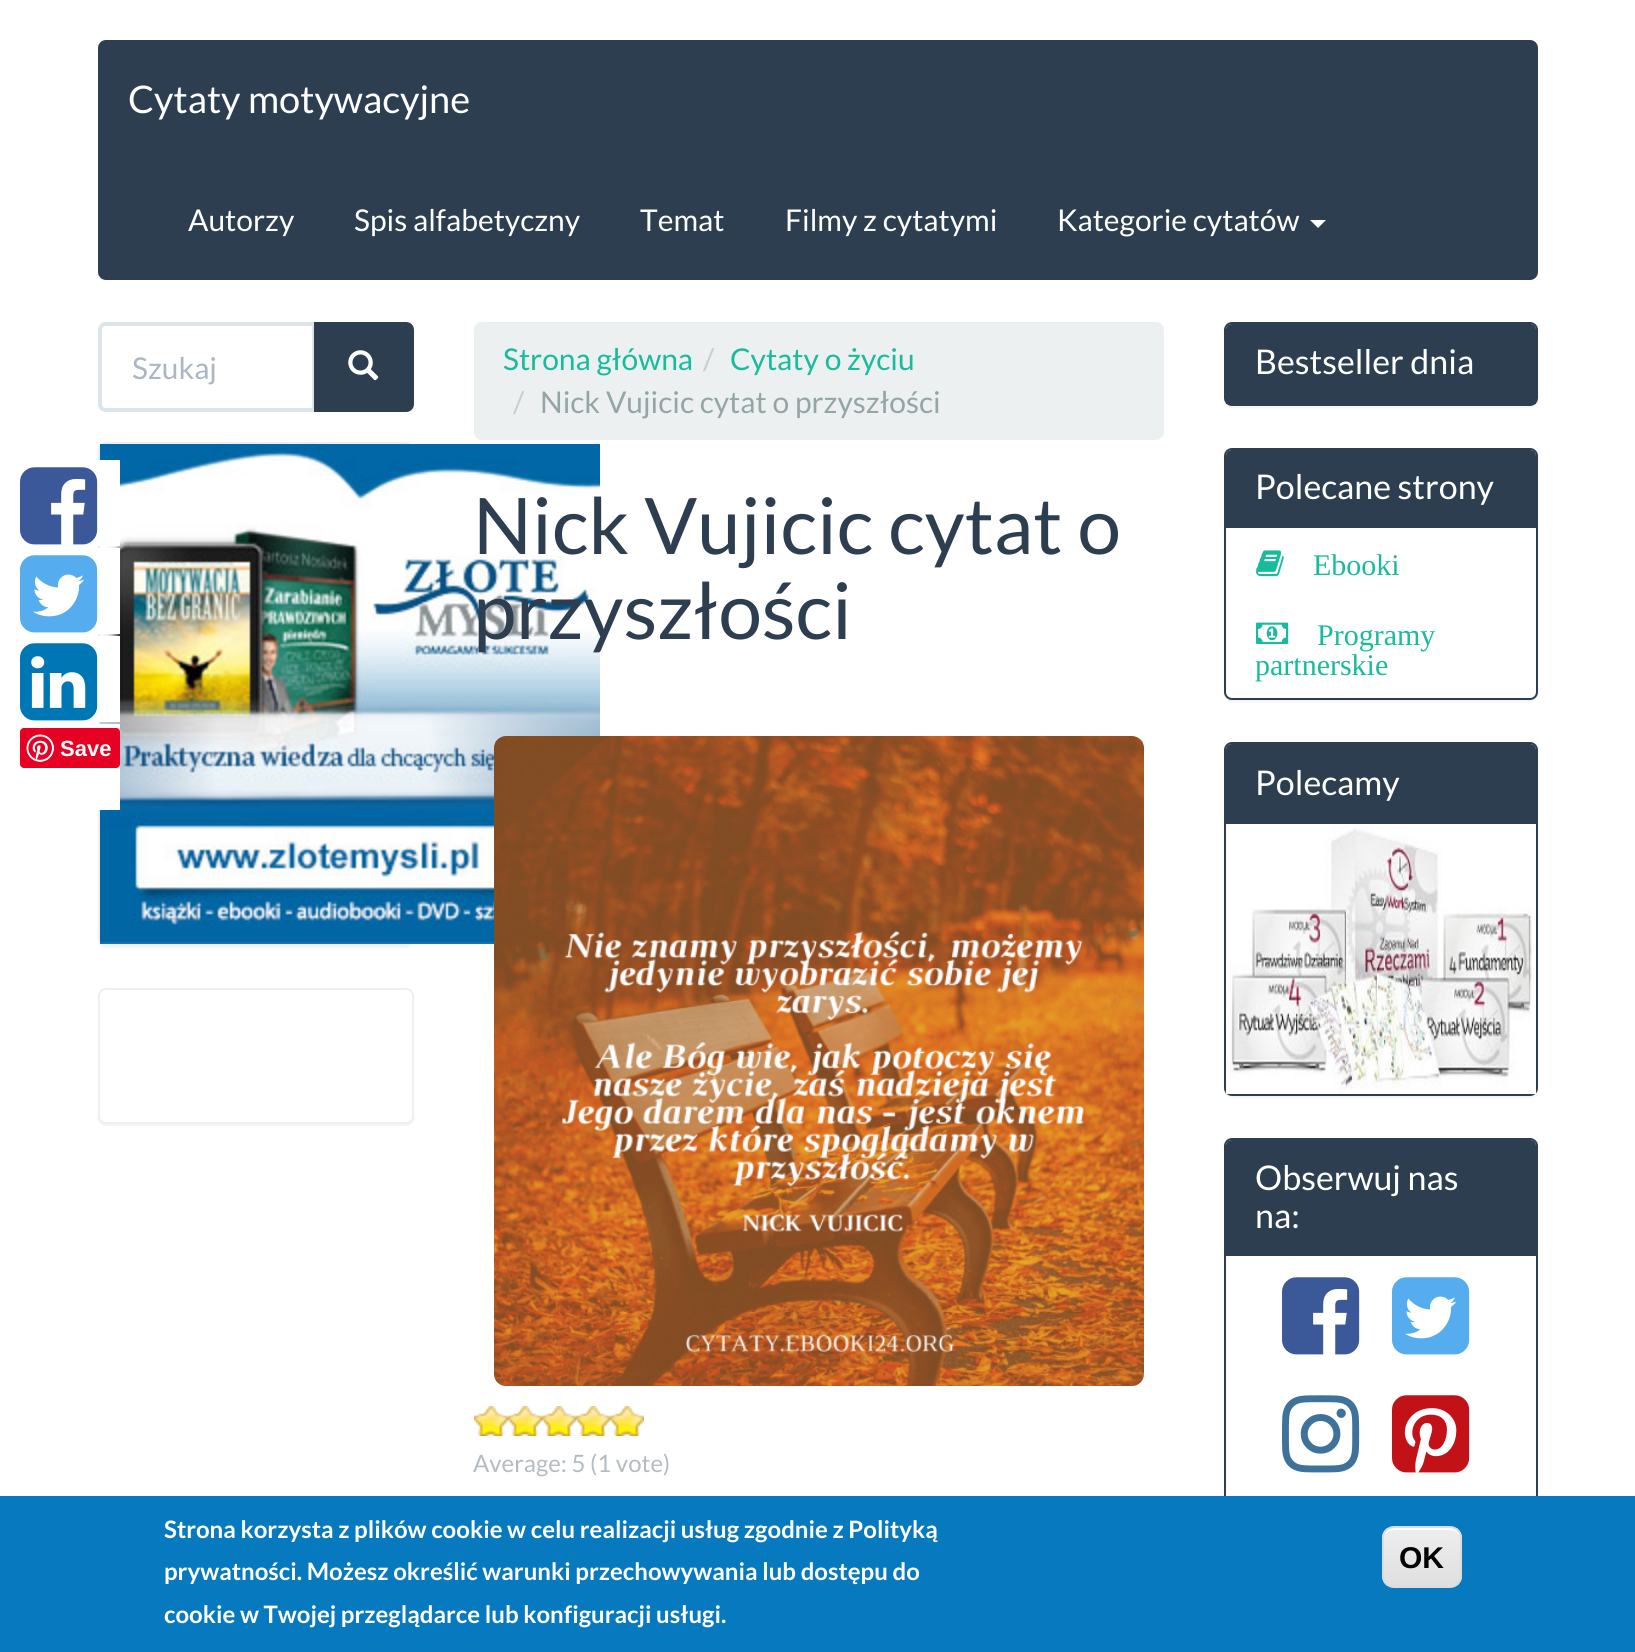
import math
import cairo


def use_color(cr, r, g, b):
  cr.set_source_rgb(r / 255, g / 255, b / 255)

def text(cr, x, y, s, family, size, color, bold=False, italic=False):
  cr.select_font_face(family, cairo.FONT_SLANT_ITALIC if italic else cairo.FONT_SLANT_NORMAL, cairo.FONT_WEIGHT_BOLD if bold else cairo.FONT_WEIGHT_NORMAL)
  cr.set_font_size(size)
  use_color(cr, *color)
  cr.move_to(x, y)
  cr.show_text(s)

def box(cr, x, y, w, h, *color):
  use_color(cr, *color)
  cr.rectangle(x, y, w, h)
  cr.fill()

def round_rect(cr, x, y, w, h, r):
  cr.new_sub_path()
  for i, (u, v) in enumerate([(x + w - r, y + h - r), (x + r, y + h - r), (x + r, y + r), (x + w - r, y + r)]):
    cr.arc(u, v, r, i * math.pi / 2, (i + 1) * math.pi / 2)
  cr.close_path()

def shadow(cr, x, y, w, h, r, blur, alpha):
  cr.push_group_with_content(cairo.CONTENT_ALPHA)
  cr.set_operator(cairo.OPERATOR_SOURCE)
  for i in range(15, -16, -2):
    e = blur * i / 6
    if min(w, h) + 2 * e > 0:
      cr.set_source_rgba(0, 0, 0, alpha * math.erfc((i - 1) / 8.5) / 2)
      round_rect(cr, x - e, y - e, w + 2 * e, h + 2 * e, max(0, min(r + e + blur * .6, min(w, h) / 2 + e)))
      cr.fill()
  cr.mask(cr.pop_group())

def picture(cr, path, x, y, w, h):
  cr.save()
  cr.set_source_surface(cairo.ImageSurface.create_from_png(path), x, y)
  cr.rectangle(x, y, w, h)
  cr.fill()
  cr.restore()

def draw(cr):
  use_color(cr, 255, 255, 255)
  cr.paint()
  use_color(cr, 44, 62, 80)
  round_rect(cr, 98, 40, 1440, 240, 8)
  cr.fill()
  use_color(cr, 255, 255, 255)
  cr.new_path()
  cr.move_to(1310, 220)
  cr.line_to(1326, 220)
  cr.line_to(1318, 228)
  cr.close_path()
  cr.fill()
  use_color(cr, 0, 0, 0)
  shadow(cr, 98, 444, 316, 504, 8, 1, 0.05)
  round_rect(cr, 99, 443, 314, 502, 7)
  use_color(cr, 236, 240, 241)
  cr.stroke()
  picture(cr, "img_06.png", 100, 444, 500, 500)
  box(cr, 97, 460, 23, 86, 255, 255, 255)
  picture(cr, "img_01.png", 20, 467, 78, 78)
  box(cr, 97, 548, 23, 86, 255, 255, 255)
  picture(cr, "img_02.png", 20, 555, 78, 78)
  box(cr, 97, 636, 23, 86, 255, 255, 255)
  picture(cr, "img_03.png", 20, 643, 78, 78)
  box(cr, 97, 724, 23, 86, 255, 255, 255)
  use_color(cr, 230, 0, 35)
  round_rect(cr, 20, 728, 100, 40, 4)
  cr.fill()
  picture(cr, "img_04.png", 26, 734, 28, 28)
  cr.new_path()
  cr.move_to(106, 324)
  cr.line_to(314, 324)
  cr.line_to(314, 410)
  cr.line_to(106, 410)
  cr.curve_to(102.5, 410, 100, 407.5, 100, 404)
  cr.line_to(100, 330)
  cr.curve_to(100, 326.5, 102.5, 324, 106, 324)
  cr.close_path()
  use_color(cr, 220, 228, 236)
  cr.set_line_width(4)
  cr.stroke()
  use_color(cr, 44, 62, 80)
  cr.new_path()
  cr.move_to(316, 324)
  cr.line_to(406, 324)
  cr.curve_to(409.5, 324, 412, 326.5, 412, 330)
  cr.line_to(412, 404)
  cr.curve_to(412, 407.5, 409.5, 410, 406, 410)
  cr.line_to(316, 410)
  cr.close_path()
  cr.fill_preserve()
  cr.stroke()
  picture(cr, "img_05.png", 348, 350, 31, 31)
  use_color(cr, 0, 0, 0)
  shadow(cr, 98, 990, 316, 136, 8, 1, 0.05)
  use_color(cr, 255, 255, 255)
  round_rect(cr, 99, 989, 314, 134, 7)
  cr.fill_preserve()
  use_color(cr, 236, 240, 241)
  cr.set_line_width(2)
  cr.stroke()
  round_rect(cr, 474, 322, 690, 118, 8)
  cr.fill()
  picture(cr, "img_07.png", 494, 736, 650, 650)
  picture(cr, "img_08.png", 474, 1406, 34, 30)
  picture(cr, "img_09.png", 474, 1406, 34, 30)
  picture(cr, "img_08.png", 508, 1406, 34, 30)
  picture(cr, "img_09.png", 508, 1406, 34, 30)
  picture(cr, "img_08.png", 542, 1406, 34, 30)
  picture(cr, "img_09.png", 542, 1406, 34, 30)
  picture(cr, "img_08.png", 576, 1406, 34, 30)
  picture(cr, "img_09.png", 576, 1406, 34, 30)
  picture(cr, "img_08.png", 610, 1406, 34, 30)
  picture(cr, "img_09.png", 610, 1406, 34, 30)
  use_color(cr, 0, 0, 0)
  shadow(cr, 1224, 324, 314, 84, 8, 1, 0.05)
  round_rect(cr, 1225, 323, 312, 82, 7)
  use_color(cr, 44, 62, 80)
  cr.stroke()
  cr.new_path()
  cr.move_to(1232, 324)
  cr.line_to(1530, 324)
  cr.curve_to(1533.5, 324, 1536, 326.5, 1536, 330)
  cr.line_to(1536, 404)
  cr.line_to(1226, 404)
  cr.line_to(1226, 330)
  cr.curve_to(1226, 326.5, 1228.5, 324, 1232, 324)
  cr.close_path()
  cr.fill()
  use_color(cr, 0, 0, 0)
  shadow(cr, 1224, 450, 314, 252, 8, 1, 0.05)
  use_color(cr, 255, 255, 255)
  round_rect(cr, 1225, 449, 312, 250, 7)
  cr.fill_preserve()
  use_color(cr, 44, 62, 80)
  cr.stroke()
  cr.new_path()
  cr.move_to(1232, 450)
  cr.line_to(1530, 450)
  cr.curve_to(1533.5, 450, 1536, 452.5, 1536, 456)
  cr.line_to(1536, 528)
  cr.line_to(1226, 528)
  cr.line_to(1226, 456)
  cr.curve_to(1226, 452.5, 1228.5, 450, 1232, 450)
  cr.close_path()
  cr.fill()
  picture(cr, "img_10.png", 1256, 550, 28, 27)
  picture(cr, "img_11.png", 1256, 622, 33, 22)
  use_color(cr, 0, 0, 0)
  shadow(cr, 1224, 744, 314, 354, 8, 1, 0.05)
  round_rect(cr, 1225, 743, 312, 352, 7)
  use_color(cr, 44, 62, 80)
  cr.stroke()
  cr.new_path()
  cr.move_to(1232, 744)
  cr.line_to(1530, 744)
  cr.curve_to(1533.5, 744, 1536, 746.5, 1536, 750)
  cr.line_to(1536, 824)
  cr.line_to(1226, 824)
  cr.line_to(1226, 750)
  cr.curve_to(1226, 746.5, 1228.5, 744, 1232, 744)
  cr.close_path()
  cr.fill()
  picture(cr, "img_12.png", 1226, 824, 310, 270)
  round_rect(cr, 1225, 1139, 312, 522, 7)
  cr.stroke()
  cr.new_path()
  cr.move_to(1232, 1140)
  cr.line_to(1530, 1140)
  cr.curve_to(1533.5, 1140, 1536, 1142.5, 1536, 1146)
  cr.line_to(1536, 1256)
  cr.line_to(1226, 1256)
  cr.line_to(1226, 1146)
  cr.curve_to(1226, 1142.5, 1228.5, 1140, 1232, 1140)
  cr.close_path()
  cr.fill()
  picture(cr, "img_01.png", 1282, 1277, 78, 78)
  picture(cr, "img_02.png", 1392, 1277, 78, 78)
  picture(cr, "img_13.png", 1282, 1395, 78, 78)
  picture(cr, "img_14.png", 1392, 1395, 78, 78)
  box(cr, 0, 1496, 1635, 156, 7, 121, 191)
  cr.save()
  round_rect(cr, 1382, 1526, 80, 62, 12)
  cr.clip()
  gradient = cairo.LinearGradient(1422, 1528, 1422, 1586)
  gradient.add_color_stop_rgba(0.05, 0.929, 0.929, 0.929, 1)
  gradient.add_color_stop_rgba(1, 0.875, 0.875, 0.875, 1)
  cr.set_source(gradient)
  cr.rectangle(1382, 1528, 80, 58)
  cr.fill()
  cr.restore()
  use_color(cr, 255, 255, 255)
  cr.new_path()
  cr.move_to(1394, 1530)
  cr.line_to(1450, 1530)
  cr.curve_to(1456, 1530, 1460, 1534, 1460, 1540)
  cr.curve_to(1460, 1527, 1451, 1528, 1441, 1528)
  cr.line_to(1403, 1528)
  cr.curve_to(1393, 1528, 1384, 1527, 1384, 1540)
  cr.curve_to(1384, 1534, 1388, 1530, 1394, 1530)
  cr.close_path()
  cr.fill()
  round_rect(cr, 1383, 1527, 78, 60, 11)
  use_color(cr, 220, 220, 220)
  cr.stroke()
  text(cr, 128, 113, "Cytaty motywacyjne", "Lato", 38, (255, 255, 255))
  text(cr, 188, 231, "Autorzy", "Lato", 30, (255, 255, 255))
  text(cr, 354, 231, "Spis alfabetyczny", "Lato", 30, (255, 255, 255))
  text(cr, 640, 231, "Temat", "Lato", 30, (255, 255, 255))
  text(cr, 785, 231, "Filmy z cytatymi", "Lato", 30, (255, 255, 255))
  text(cr, 1057, 231, "Kategorie cytatów", "Lato", 30, (255, 255, 255))
  text(cr, 60, 756, "Save", "Liberation Sans", 22, (255, 255, 255), bold=True)
  text(cr, 132, 379, "Szukaj", "Lato", 30, (172, 182, 192))
  text(cr, 503, 370, "Strona główna", "Lato", 30, (24, 188, 156))
  text(cr, 703, 370, "/", "Lato", 30, (204, 204, 204))
  text(cr, 730, 370, "Cytaty o życiu", "Lato", 30, (24, 188, 156))
  text(cr, 513, 413, "/", "Lato", 30, (204, 204, 204))
  text(cr, 540, 413, "Nick Vujicic cytat o przyszłości", "Lato", 30, (149, 165, 166))
  text(cr, 473, 554, "Nick Vujicic cytat o", "Lato", 78, (44, 62, 80))
  text(cr, 473, 639, "przyszłości", "Lato", 78, (44, 62, 80))
  text(cr, 473, 1472, "Average: 5 (1 vote)", "Lato", 24, (180, 188, 194))
  text(cr, 1255, 374, "Bestseller dnia", "Lato", 34, (255, 255, 255))
  text(cr, 1255, 499, "Polecane strony", "Lato", 34, (255, 255, 255))
  text(cr, 1313, 575, "Ebooki", "Liberation Serif", 30, (24, 188, 156))
  text(cr, 1317, 645, "Programy", "Liberation Serif", 30, (24, 188, 156))
  text(cr, 1255, 675, "partnerskie", "Liberation Serif", 30, (24, 188, 156))
  text(cr, 1255, 795, "Polecamy", "Lato", 34, (255, 255, 255))
  text(cr, 1255, 1190, "Obserwuj nas", "Lato", 34, (255, 255, 255))
  text(cr, 1255, 1228, "na:", "Lato", 34, (255, 255, 255))
  text(cr, 164, 1538, "Strona korzysta z plików cookie w celu realizacji usług zgodnie z Polityką", "Lato", 24, (255, 255, 255), bold=True)
  text(cr, 164, 1580, "prywatności. Możesz określić warunki przechowywania lub dostępu do", "Lato", 24, (255, 255, 255), bold=True)
  text(cr, 164, 1623, "cookie w Twojej przeglądarce lub konfiguracji usługi.", "Lato", 24, (255, 255, 255), bold=True)
  text(cr, 1399, 1568, "OK", "Liberation Sans", 30, (0, 0, 0), bold=True)


surface = cairo.ImageSurface(cairo.FORMAT_RGB24, 1635, 1652)
cr = cairo.Context(surface)
options = cairo.FontOptions()
options.set_hint_metrics(cairo.HINT_METRICS_OFF)
options.set_hint_style(cairo.HINT_STYLE_NONE)
cr.set_font_options(options)
cr.set_miter_limit(4)
draw(cr)
surface.write_to_png("out.png")
